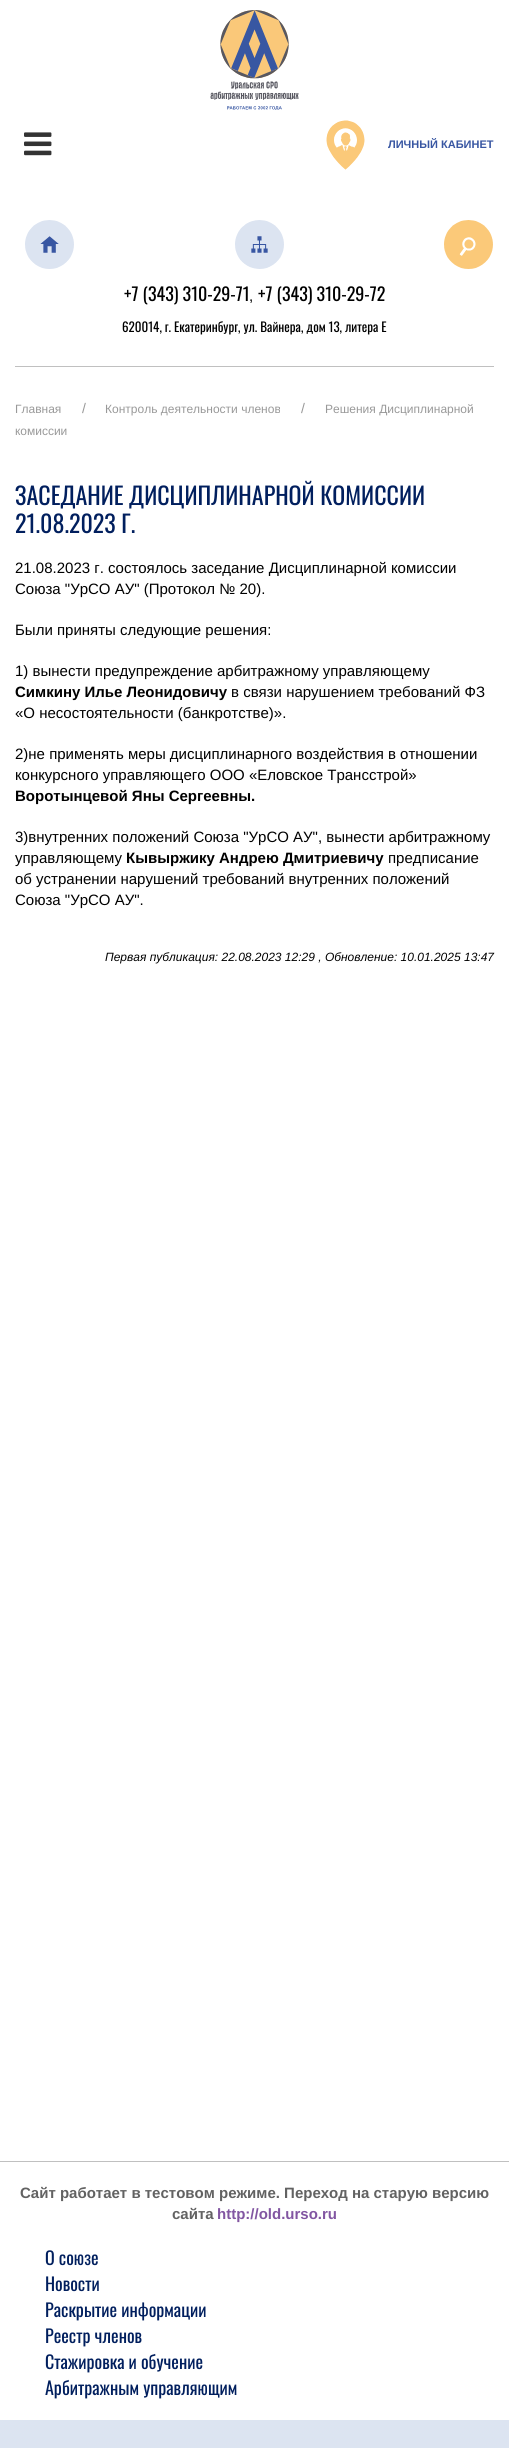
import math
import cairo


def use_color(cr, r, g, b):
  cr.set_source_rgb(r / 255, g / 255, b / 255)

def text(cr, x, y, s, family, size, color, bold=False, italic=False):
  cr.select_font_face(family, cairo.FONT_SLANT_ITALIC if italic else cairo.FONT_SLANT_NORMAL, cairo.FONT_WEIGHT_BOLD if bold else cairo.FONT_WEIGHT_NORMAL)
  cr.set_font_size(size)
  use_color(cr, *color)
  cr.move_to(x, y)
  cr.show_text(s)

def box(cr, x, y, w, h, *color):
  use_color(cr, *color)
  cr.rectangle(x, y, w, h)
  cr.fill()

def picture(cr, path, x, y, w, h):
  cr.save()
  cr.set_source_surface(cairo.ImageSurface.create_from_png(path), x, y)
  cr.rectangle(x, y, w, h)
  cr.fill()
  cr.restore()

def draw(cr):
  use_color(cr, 255, 255, 255)
  cr.paint()
  picture(cr, "img_01.png", 210, 10, 89, 100)
  picture(cr, "img_02.png", 24, 132, 28, 24)
  picture(cr, "img_03.png", 326, 120, 39, 50)
  box(cr, 15, 366, 479, 1, 192, 192, 192)
  picture(cr, "img_04.png", 25, 220, 49, 49)
  picture(cr, "img_05.png", 235, 220, 49, 49)
  picture(cr, "img_06.png", 444, 220, 49, 49)
  box(cr, 0, 2420, 509, 28, 220, 228, 241)
  box(cr, 0, 2161, 509, 1, 192, 192, 192)
  text(cr, 388, 148, "ЛИЧНЫЙ КАБИНЕТ", "Liberation Sans", 11, (56, 86, 162), bold=True)
  text(cr, 124, 301, "+7 (343) 310-29-71", "Oswald", 18, (0, 0, 0))
  text(cr, 249, 301, ",", "Liberation Sans", 15, (0, 0, 0))
  text(cr, 258, 301, "+7 (343) 310-29-72", "Oswald", 18, (0, 0, 0))
  text(cr, 122, 332, "620014, г. Екатеринбург, ул. Вайнера, дом 13, литера Е", "Oswald", 13, (0, 0, 0))
  text(cr, 301, 413, "/", "Liberation Sans", 14, (153, 153, 153))
  text(cr, 325, 413, "Решения Дисциплинарной", "Liberation Sans", 12, (153, 153, 153))
  text(cr, 15, 435, "комиссии", "Liberation Sans", 12, (153, 153, 153))
  text(cr, 15, 413, "Главная", "Liberation Sans", 12, (153, 153, 153))
  text(cr, 82, 413, "/", "Liberation Sans", 14, (153, 153, 153))
  text(cr, 105, 413, "Контроль деятельности членов", "Liberation Sans", 12, (153, 153, 153))
  text(cr, 15, 505, "ЗАСЕДАНИЕ ДИСЦИПЛИНАРНОЙ КОМИССИИ", "Oswald", 24, (1, 31, 94))
  text(cr, 15, 533, "21.08.2023 Г.", "Oswald", 24, (1, 31, 94))
  text(cr, 15, 573, "21.08.2023 г. состоялось заседание Дисциплинарной комиссии", "Liberation Sans", 15, (0, 0, 0))
  text(cr, 15, 594, "Союза \"УрСО АУ\" (Протокол № 20).", "Liberation Sans", 15, (0, 0, 0))
  text(cr, 15, 635, "Были приняты следующие решения:", "Liberation Sans", 15, (0, 0, 0))
  text(cr, 15, 676, "1) вынести предупреждение арбитражному управляющему", "Liberation Sans", 15, (0, 0, 0))
  text(cr, 15, 697, "Симкину Илье Леонидовичу", "Liberation Sans", 15, (0, 0, 0), bold=True)
  text(cr, 231, 697, "в связи нарушением требований ФЗ", "Liberation Sans", 15, (0, 0, 0))
  text(cr, 15, 718, "«О несостоятельности (банкротстве)».", "Liberation Sans", 15, (0, 0, 0))
  text(cr, 15, 759, "2)не применять меры дисциплинарного воздействия в отношении", "Liberation Sans", 15, (0, 0, 0))
  text(cr, 15, 780, "конкурсного управляющего ООО «Еловское Трансстрой»", "Liberation Sans", 15, (0, 0, 0))
  text(cr, 15, 801, "Воротынцевой Яны Сергеевны.", "Liberation Sans", 15, (0, 0, 0), bold=True)
  text(cr, 15, 842, "3)внутренних положений Союза \"УрСО АУ\", вынести арбитражному", "Liberation Sans", 15, (0, 0, 0))
  text(cr, 15, 863, "управляющему", "Liberation Sans", 15, (0, 0, 0))
  text(cr, 126, 863, "Кывыржику Андрею Дмитриевичу", "Liberation Sans", 15, (0, 0, 0), bold=True)
  text(cr, 388, 863, "предписание", "Liberation Sans", 15, (0, 0, 0))
  text(cr, 15, 884, "об устранении нарушений требований внутренних положений", "Liberation Sans", 15, (0, 0, 0))
  text(cr, 15, 905, "Союза \"УрСО АУ\".", "Liberation Sans", 15, (0, 0, 0))
  text(cr, 105, 961, "Первая публикация: 22.08.2023 12:29 , Обновление: 10.01.2025 13:47", "Liberation Sans", 12, (0, 0, 0), italic=True)
  text(cr, 20, 2198, "Сайт работает в тестовом режиме. Переход на старую версию", "Liberation Sans", 15, (98, 98, 98), bold=True)
  text(cr, 172, 2219, "сайта", "Liberation Sans", 15, (98, 98, 98), bold=True)
  text(cr, 217, 2219, "http://old.urso.ru", "Liberation Sans", 15, (130, 86, 162), bold=True)
  text(cr, 45, 2265, "О союзе", "Oswald", 18, (1, 31, 94))
  text(cr, 45, 2291, "Новости", "Oswald", 18, (1, 31, 94))
  text(cr, 45, 2317, "Раскрытие информации", "Oswald", 18, (1, 31, 94))
  text(cr, 45, 2343, "Реестр членов", "Oswald", 18, (1, 31, 94))
  text(cr, 45, 2369, "Стажировка и обучение", "Oswald", 18, (1, 31, 94))
  text(cr, 45, 2395, "Арбитражным управляющим", "Oswald", 18, (1, 31, 94))


surface = cairo.ImageSurface(cairo.FORMAT_RGB24, 509, 2448)
cr = cairo.Context(surface)
options = cairo.FontOptions()
options.set_hint_metrics(cairo.HINT_METRICS_OFF)
options.set_hint_style(cairo.HINT_STYLE_NONE)
cr.set_font_options(options)
cr.set_miter_limit(4)
draw(cr)
surface.write_to_png("out.png")
